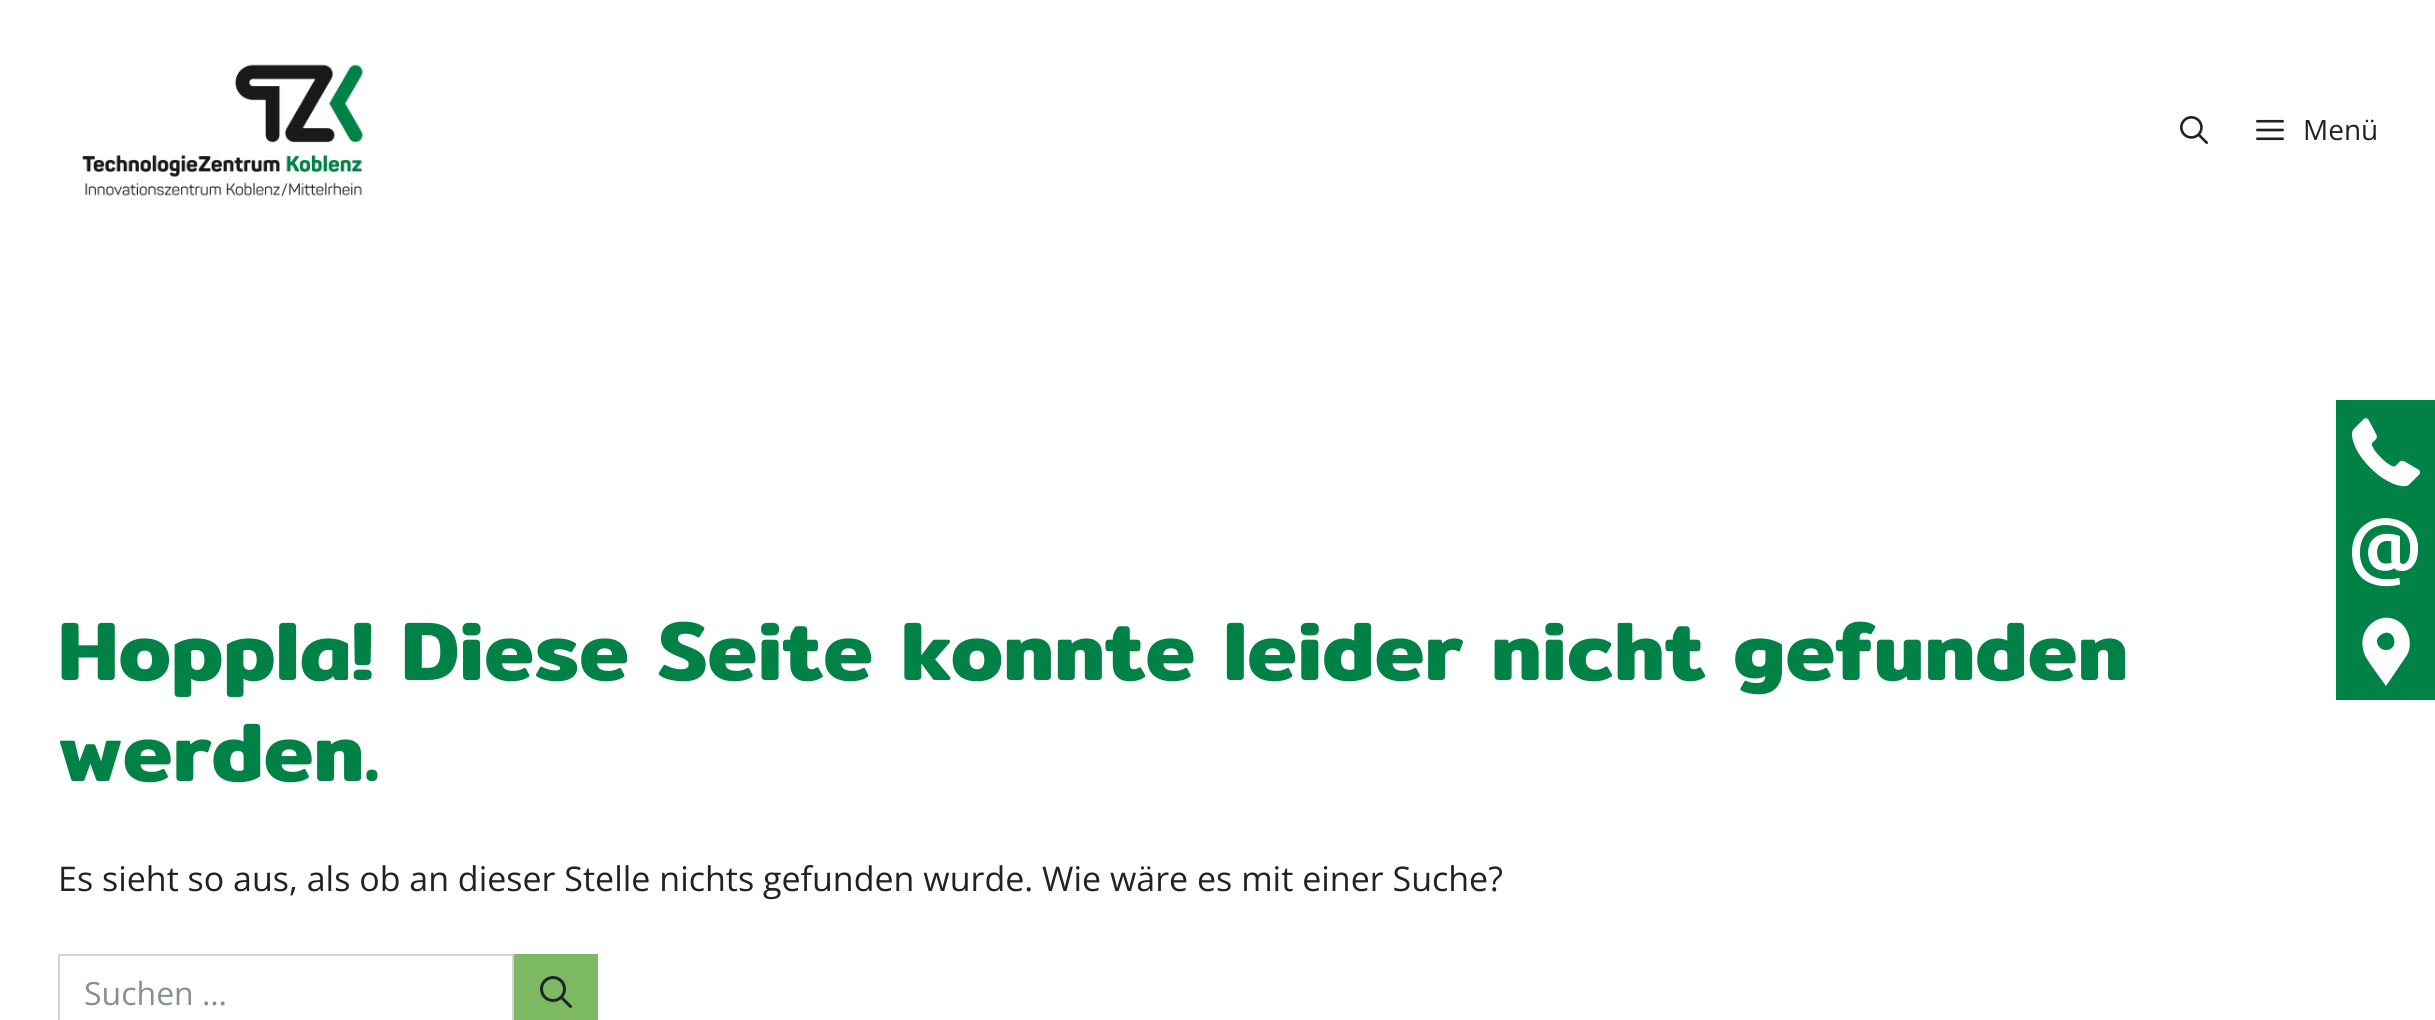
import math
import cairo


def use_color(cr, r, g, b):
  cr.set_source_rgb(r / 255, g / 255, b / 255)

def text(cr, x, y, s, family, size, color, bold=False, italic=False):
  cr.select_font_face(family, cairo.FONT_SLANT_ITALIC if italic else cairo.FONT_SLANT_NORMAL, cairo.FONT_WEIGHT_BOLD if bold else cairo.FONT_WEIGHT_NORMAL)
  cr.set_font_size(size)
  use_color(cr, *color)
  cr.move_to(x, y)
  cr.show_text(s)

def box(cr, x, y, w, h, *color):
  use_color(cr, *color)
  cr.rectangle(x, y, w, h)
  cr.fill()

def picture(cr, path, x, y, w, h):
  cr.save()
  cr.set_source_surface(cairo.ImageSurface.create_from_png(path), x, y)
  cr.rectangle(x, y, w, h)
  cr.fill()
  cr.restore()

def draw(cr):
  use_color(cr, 255, 255, 255)
  cr.paint()
  picture(cr, "img_01.png", 82, 64, 281, 133)
  picture(cr, "img_02.png", 2180, 116, 28, 28)
  picture(cr, "img_03.png", 2256, 119, 28, 22)
  box(cr, 2336, 400, 99, 300, 0, 130, 70)
  picture(cr, "img_04.png", 2352, 418, 68, 69)
  picture(cr, "img_05.png", 2352, 518, 66, 69)
  use_color(cr, 255, 255, 255)
  cr.new_path()
  cr.move_to(2403, 625)
  cr.curve_to(2385, 607, 2358, 625, 2363, 649)
  cr.curve_to(2364, 656, 2369, 662, 2373, 668)
  cr.line_to(2386, 686)
  cr.line_to(2407, 655)
  cr.curve_to(2412, 646, 2410, 633, 2403, 625)
  cr.close_path()
  cr.move_to(2386, 650)
  cr.curve_to(2381, 650, 2377, 646, 2377, 641)
  cr.curve_to(2377, 638, 2379, 636, 2382, 634)
  cr.curve_to(2395, 627, 2400, 650, 2386, 650)
  cr.close_path()
  cr.fill()
  cr.rectangle(59, 955, 454, 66)
  use_color(cr, 206, 212, 218)
  cr.stroke()
  box(cr, 514, 954, 84, 66, 125, 184, 98)
  picture(cr, "img_06.png", 540, 976, 32, 32)
  text(cr, 2303, 140, "Menü", "Open Sans", 28, (34, 34, 34))
  text(cr, 58, 680, "Hoppla! Diese Seite konnte leider nicht gefunden", "Mitr SemiBold", 84, (0, 130, 70))
  text(cr, 58, 781, "werden.", "Mitr SemiBold", 84, (0, 130, 70))
  text(cr, 58, 891, "Es sieht so aus, als ob an dieser Stelle nichts gefunden wurde. Wie wäre es mit einer Suche?", "Open Sans", 34, (34, 34, 34))
  text(cr, 84, 1005, "Suchen …", "Open Sans", 32, (134, 142, 150))


surface = cairo.ImageSurface(cairo.FORMAT_RGB24, 2435, 1020)
cr = cairo.Context(surface)
options = cairo.FontOptions()
options.set_hint_metrics(cairo.HINT_METRICS_OFF)
options.set_hint_style(cairo.HINT_STYLE_NONE)
cr.set_font_options(options)
cr.set_miter_limit(4)
draw(cr)
surface.write_to_png("out.png")
